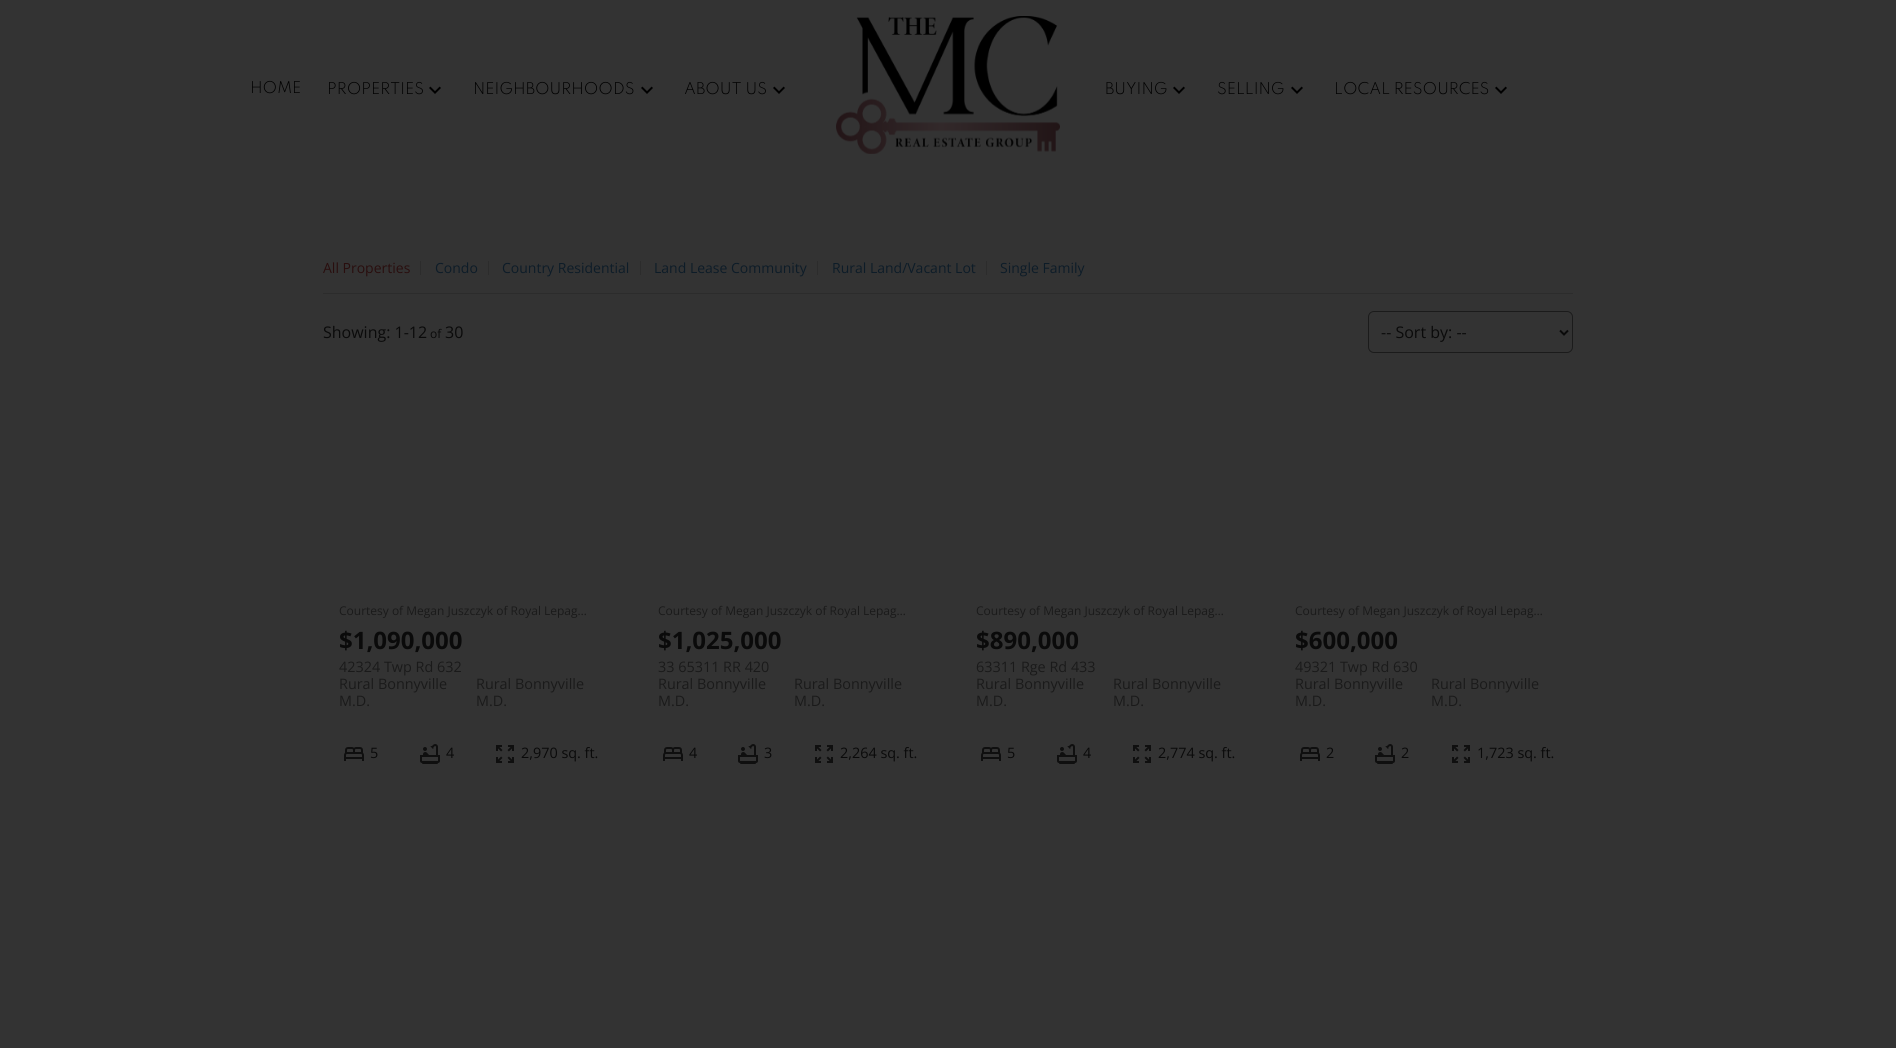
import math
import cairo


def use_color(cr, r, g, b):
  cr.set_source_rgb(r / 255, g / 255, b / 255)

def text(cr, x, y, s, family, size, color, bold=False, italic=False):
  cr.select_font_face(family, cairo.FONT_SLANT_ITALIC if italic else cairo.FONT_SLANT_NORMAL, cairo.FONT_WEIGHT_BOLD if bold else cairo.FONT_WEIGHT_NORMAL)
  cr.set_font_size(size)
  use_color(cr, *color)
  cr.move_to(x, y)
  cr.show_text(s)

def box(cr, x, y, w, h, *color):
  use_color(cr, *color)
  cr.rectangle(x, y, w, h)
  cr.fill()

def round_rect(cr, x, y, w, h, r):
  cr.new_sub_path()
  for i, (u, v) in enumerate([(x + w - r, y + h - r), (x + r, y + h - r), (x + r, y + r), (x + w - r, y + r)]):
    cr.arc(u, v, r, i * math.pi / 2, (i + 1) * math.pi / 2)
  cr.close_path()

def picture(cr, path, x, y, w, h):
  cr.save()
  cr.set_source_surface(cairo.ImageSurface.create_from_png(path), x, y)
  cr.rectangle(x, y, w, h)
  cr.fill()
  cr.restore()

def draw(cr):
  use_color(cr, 51, 51, 51)
  cr.paint()
  picture(cr, "img_01.png", 429, 86, 12, 8)
  picture(cr, "img_01.png", 641, 86, 12, 8)
  picture(cr, "img_01.png", 773, 86, 12, 8)
  picture(cr, "img_02.png", 836, 16, 224, 138)
  picture(cr, "img_01.png", 1173, 86, 12, 8)
  picture(cr, "img_01.png", 1291, 86, 12, 8)
  picture(cr, "img_01.png", 1495, 86, 12, 8)
  box(cr, 420, 261, 1, 14, 44, 44, 44)
  box(cr, 488, 261, 1, 14, 44, 44, 44)
  box(cr, 640, 261, 1, 14, 44, 44, 44)
  box(cr, 817, 261, 1, 14, 44, 44, 44)
  box(cr, 986, 261, 1, 14, 44, 44, 44)
  box(cr, 323, 293, 1250, 1, 44, 44, 44)
  round_rect(cr, 1368.5, 311.5, 204, 41, 5.5)
  use_color(cr, 27, 27, 27)
  cr.set_line_width(1)
  cr.stroke()
  cr.new_path()
  cr.move_to(1560, 330.5)
  cr.line_to(1564, 334.5)
  cr.line_to(1568, 330.5)
  use_color(cr, 10, 10, 10)
  cr.set_line_width(2)
  cr.stroke()
  picture(cr, "img_03.png", 344, 747, 20, 14)
  picture(cr, "img_04.png", 420, 744, 20, 20)
  picture(cr, "img_05.png", 496, 745, 18, 18)
  picture(cr, "img_03.png", 663, 747, 20, 14)
  picture(cr, "img_04.png", 738, 744, 20, 20)
  picture(cr, "img_05.png", 815, 745, 18, 18)
  picture(cr, "img_03.png", 981, 747, 20, 14)
  picture(cr, "img_04.png", 1057, 744, 20, 20)
  picture(cr, "img_05.png", 1133, 745, 18, 18)
  picture(cr, "img_03.png", 1300, 747, 20, 14)
  picture(cr, "img_04.png", 1375, 744, 20, 20)
  picture(cr, "img_05.png", 1452, 745, 18, 18)
  text(cr, 250, 93, "HOME", "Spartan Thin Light", 14.4, (0, 0, 0))
  text(cr, 327, 94, "PROPERTIES", "Spartan Thin Light", 14.4, (0, 0, 0))
  text(cr, 473, 94, "NEIGHBOURHOODS", "Spartan Thin Light", 14.4, (0, 0, 0))
  text(cr, 684, 94, "ABOUT US", "Spartan Thin Light", 14.4, (0, 0, 0))
  text(cr, 1105, 94, "BUYING", "Spartan Thin Light", 14.4, (0, 0, 0))
  text(cr, 1217, 94, "SELLING", "Spartan Thin Light", 14.4, (0, 0, 0))
  text(cr, 1334, 94, "LOCAL RESOURCES", "Spartan Thin Light", 14.4, (0, 0, 0))
  text(cr, 323, 273, "All Properties", "Open Sans", 14, (41, 14, 14))
  text(cr, 435, 273, "Condo", "Open Sans", 14, (13, 28, 40))
  text(cr, 502, 273, "Country Residential", "Open Sans", 14, (13, 28, 40))
  text(cr, 654, 273, "Land Lease Community", "Open Sans", 14, (13, 28, 40))
  text(cr, 832, 273, "Rural Land/Vacant Lot", "Open Sans", 14, (13, 28, 40))
  text(cr, 1000, 273, "Single Family", "Open Sans", 14, (13, 28, 40))
  text(cr, 323, 338, "Showing: 1-12", "Open Sans", 16, (10, 10, 10))
  text(cr, 430, 338, "of", "Open Sans", 12, (10, 10, 10))
  text(cr, 445, 338, "30", "Open Sans", 16, (10, 10, 10))
  text(cr, 1381, 338, "-- Sort by: --", "Open Sans", 16, (10, 10, 10))
  text(cr, 339, 615, "Courtesy of Megan Juszczyk of Royal Lepag…", "Open Sans", 12, (26, 26, 26))
  text(cr, 339, 649, "$1,090,000", "Open Sans", 24, (10, 10, 10), bold=True)
  text(cr, 339, 672, "42324 Twp Rd 632", "Open Sans", 14.4, (26, 26, 26))
  text(cr, 339, 689, "Rural Bonnyville", "Open Sans", 14.4, (26, 26, 26))
  text(cr, 339, 706, "M.D.", "Open Sans", 14.4, (26, 26, 26))
  text(cr, 476, 689, "Rural Bonnyville", "Open Sans", 14.4, (26, 26, 26))
  text(cr, 476, 706, "M.D.", "Open Sans", 14.4, (26, 26, 26))
  text(cr, 370, 758, "5", "Open Sans", 14.4, (10, 10, 10))
  text(cr, 446, 758, "4", "Open Sans", 14.4, (10, 10, 10))
  text(cr, 521, 758, "2,970 sq. ft.", "Open Sans", 14.4, (10, 10, 10))
  text(cr, 658, 615, "Courtesy of Megan Juszczyk of Royal Lepag…", "Open Sans", 12, (26, 26, 26))
  text(cr, 658, 649, "$1,025,000", "Open Sans", 24, (10, 10, 10), bold=True)
  text(cr, 658, 672, "33 65311 RR 420", "Open Sans", 14.4, (26, 26, 26))
  text(cr, 658, 689, "Rural Bonnyville", "Open Sans", 14.4, (26, 26, 26))
  text(cr, 658, 706, "M.D.", "Open Sans", 14.4, (26, 26, 26))
  text(cr, 794, 689, "Rural Bonnyville", "Open Sans", 14.4, (26, 26, 26))
  text(cr, 794, 706, "M.D.", "Open Sans", 14.4, (26, 26, 26))
  text(cr, 689, 758, "4", "Open Sans", 14.4, (10, 10, 10))
  text(cr, 764, 758, "3", "Open Sans", 14.4, (10, 10, 10))
  text(cr, 840, 758, "2,264 sq. ft.", "Open Sans", 14.4, (10, 10, 10))
  text(cr, 976, 615, "Courtesy of Megan Juszczyk of Royal Lepag…", "Open Sans", 12, (26, 26, 26))
  text(cr, 976, 649, "$890,000", "Open Sans", 24, (10, 10, 10), bold=True)
  text(cr, 976, 672, "63311 Rge Rd 433", "Open Sans", 14.4, (26, 26, 26))
  text(cr, 976, 689, "Rural Bonnyville", "Open Sans", 14.4, (26, 26, 26))
  text(cr, 976, 706, "M.D.", "Open Sans", 14.4, (26, 26, 26))
  text(cr, 1113, 689, "Rural Bonnyville", "Open Sans", 14.4, (26, 26, 26))
  text(cr, 1113, 706, "M.D.", "Open Sans", 14.4, (26, 26, 26))
  text(cr, 1007, 758, "5", "Open Sans", 14.4, (10, 10, 10))
  text(cr, 1083, 758, "4", "Open Sans", 14.4, (10, 10, 10))
  text(cr, 1158, 758, "2,774 sq. ft.", "Open Sans", 14.4, (10, 10, 10))
  text(cr, 1295, 615, "Courtesy of Megan Juszczyk of Royal Lepag…", "Open Sans", 12, (26, 26, 26))
  text(cr, 1295, 649, "$600,000", "Open Sans", 24, (10, 10, 10), bold=True)
  text(cr, 1295, 672, "49321 Twp Rd 630", "Open Sans", 14.4, (26, 26, 26))
  text(cr, 1295, 689, "Rural Bonnyville", "Open Sans", 14.4, (26, 26, 26))
  text(cr, 1295, 706, "M.D.", "Open Sans", 14.4, (26, 26, 26))
  text(cr, 1431, 689, "Rural Bonnyville", "Open Sans", 14.4, (26, 26, 26))
  text(cr, 1431, 706, "M.D.", "Open Sans", 14.4, (26, 26, 26))
  text(cr, 1326, 758, "2", "Open Sans", 14.4, (10, 10, 10))
  text(cr, 1401, 758, "2", "Open Sans", 14.4, (10, 10, 10))
  text(cr, 1477, 758, "1,723 sq. ft.", "Open Sans", 14.4, (10, 10, 10))


surface = cairo.ImageSurface(cairo.FORMAT_RGB24, 1896, 1048)
cr = cairo.Context(surface)
options = cairo.FontOptions()
options.set_hint_metrics(cairo.HINT_METRICS_OFF)
options.set_hint_style(cairo.HINT_STYLE_NONE)
cr.set_font_options(options)
cr.set_miter_limit(4)
draw(cr)
surface.write_to_png("out.png")
